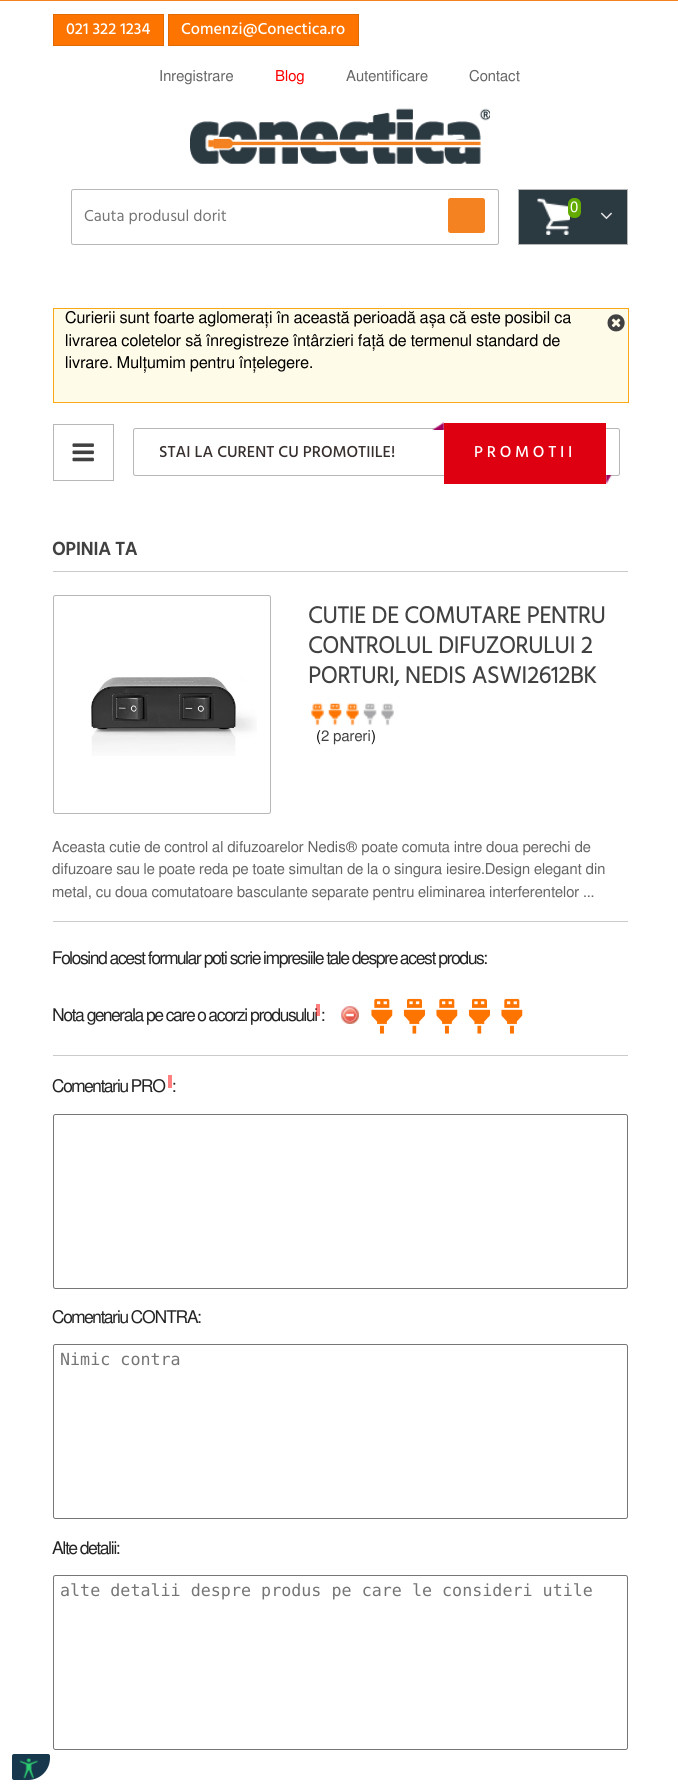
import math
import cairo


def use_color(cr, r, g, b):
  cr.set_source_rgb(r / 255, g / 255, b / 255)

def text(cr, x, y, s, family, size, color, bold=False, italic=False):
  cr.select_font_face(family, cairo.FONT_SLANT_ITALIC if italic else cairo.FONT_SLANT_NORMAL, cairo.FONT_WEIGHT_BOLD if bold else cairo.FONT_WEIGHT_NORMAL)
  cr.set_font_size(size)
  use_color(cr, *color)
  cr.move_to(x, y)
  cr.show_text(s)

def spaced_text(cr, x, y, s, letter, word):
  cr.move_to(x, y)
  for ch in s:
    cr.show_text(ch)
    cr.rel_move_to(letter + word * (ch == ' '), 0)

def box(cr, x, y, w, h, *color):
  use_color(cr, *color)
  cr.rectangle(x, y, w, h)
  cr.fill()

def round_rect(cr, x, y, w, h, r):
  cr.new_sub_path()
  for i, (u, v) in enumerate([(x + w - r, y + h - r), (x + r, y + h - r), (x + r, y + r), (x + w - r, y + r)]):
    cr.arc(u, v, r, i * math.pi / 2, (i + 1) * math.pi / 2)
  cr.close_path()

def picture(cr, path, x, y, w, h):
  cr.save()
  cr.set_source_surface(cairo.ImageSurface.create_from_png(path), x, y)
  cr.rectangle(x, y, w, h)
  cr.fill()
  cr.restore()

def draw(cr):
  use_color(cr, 255, 255, 255)
  cr.paint()
  box(cr, 0, 0, 678, 1, 245, 130, 32)
  use_color(cr, 253, 116, 0)
  cr.rectangle(53.5, 14.5, 110, 31)
  cr.fill_preserve()
  use_color(cr, 224, 105, 0)
  cr.set_line_width(1)
  cr.stroke()
  use_color(cr, 253, 116, 0)
  cr.rectangle(168.5, 14.5, 190, 31)
  cr.fill_preserve()
  use_color(cr, 224, 105, 0)
  cr.stroke()
  picture(cr, "img_01.png", 190, 108, 300, 56)
  box(cr, 519, 190, 108, 54, 43, 57, 65)
  picture(cr, "img_02.png", 537, 198, 33, 37)
  cr.rectangle(518.5, 189.5, 109, 55)
  use_color(cr, 183, 183, 183)
  cr.stroke()
  use_color(cr, 99, 171, 0)
  round_rect(cr, 568, 198, 13, 20, 6)
  cr.fill()
  picture(cr, "img_03.png", 600, 212, 12, 8)
  round_rect(cr, 71.5, 189.5, 427, 55, 2)
  use_color(cr, 183, 183, 183)
  cr.stroke()
  use_color(cr, 245, 130, 32)
  round_rect(cr, 448, 198, 37, 35, 2.5)
  cr.fill()
  use_color(cr, 255, 251, 233)
  cr.rectangle(53.5, 308.5, 575, 94)
  cr.fill_preserve()
  use_color(cr, 249, 168, 24)
  cr.stroke()
  picture(cr, "img_04.png", 607, 314, 18, 18)
  cr.rectangle(53.5, 424.5, 60, 56)
  use_color(cr, 183, 183, 183)
  cr.stroke()
  picture(cr, "img_05.png", 72, 443, 22, 19)
  round_rect(cr, 133.5, 428.5, 486, 47, 2)
  cr.stroke()
  box(cr, 444, 423, 162, 61, 222, 0, 16)
  picture(cr, "img_06.png", 432, 422, 12, 8)
  picture(cr, "img_07.png", 606, 475, 6, 9)
  box(cr, 53, 571, 575, 1, 203, 203, 203)
  box(cr, 53, 921, 575, 1, 203, 203, 203)
  round_rect(cr, 53.5, 595.5, 217, 218, 2)
  use_color(cr, 183, 183, 183)
  cr.stroke()
  picture(cr, "img_08.png", 91, 677, 166, 79)
  picture(cr, "img_09.png", 311, 703, 83, 23)
  box(cr, 53, 1055, 575, 1, 203, 203, 203)
  picture(cr, "img_10.png", 341, 1006, 18, 18)
  picture(cr, "img_11.png", 371, 998, 22, 36)
  picture(cr, "img_12.png", 403, 998, 22, 36)
  picture(cr, "img_11.png", 436, 998, 22, 36)
  picture(cr, "img_13.png", 468, 998, 22, 36)
  picture(cr, "img_11.png", 501, 998, 22, 36)
  box(cr, 168, 1075, 4, 13, 255, 128, 128)
  round_rect(cr, 53.5, 1114.5, 574, 174, 2)
  use_color(cr, 118, 118, 118)
  cr.stroke()
  round_rect(cr, 53.5, 1344.5, 574, 174, 2)
  cr.stroke()
  round_rect(cr, 53.5, 1575.5, 574, 174, 2)
  cr.stroke()
  use_color(cr, 23, 56, 76)
  cr.new_path()
  cr.move_to(14, 1752.5)
  cr.line_to(48, 1752.5)
  cr.curve_to(50, 1752.5, 51.5, 1754, 51.5, 1756)
  cr.line_to(51.5, 1758)
  cr.curve_to(51.5, 1771, 41, 1781.5, 28, 1781.5)
  cr.line_to(14, 1781.5)
  cr.curve_to(12, 1781.5, 10.5, 1780, 10.5, 1778)
  cr.line_to(10.5, 1756)
  cr.curve_to(10.5, 1754, 12, 1752.5, 14, 1752.5)
  cr.close_path()
  cr.fill_preserve()
  use_color(cr, 255, 255, 255)
  cr.set_line_width(3)
  cr.stroke()
  picture(cr, "img_14.png", 19, 1758, 19, 21)
  text(cr, 66, 34, "021 322 1234", "Hind Medium", 16.25, (255, 255, 255))
  text(cr, 181, 34, "Comenzi@Conectica.ro", "Hind Medium", 16.25, (255, 255, 255))
  text(cr, 159, 81, "Inregistrare", "FreeSans", 15, (102, 102, 102))
  text(cr, 275, 81, "Blog", "FreeSans", 15, (255, 0, 0))
  text(cr, 346, 81, "Autentificare", "FreeSans", 15, (102, 102, 102))
  text(cr, 469, 81, "Contact", "FreeSans", 15, (102, 102, 102))
  text(cr, 570, 212, "0", "FreeSans", 15, (255, 255, 255))
  text(cr, 84, 221, "Cauta produsul dorit", "Hind", 16.25, (117, 117, 117))
  text(cr, 65, 323, "Curierii sunt foarte aglomerați în această perioadă așa că este posibil ca", "FreeSans", 16.25, (0, 0, 0))
  text(cr, 65, 346, "livrarea coletelor să înregistreze întârzieri față de termenul standard de", "FreeSans", 16.25, (0, 0, 0))
  text(cr, 65, 368, "livrare. Mulțumim pentru înțelegere.", "FreeSans", 16.25, (0, 0, 0))
  text(cr, 159, 457, "STAI LA CURENT CU PROMOTIILE!", "Hind Medium", 16.25, (54, 47, 45))
  use_color(cr, 255, 255, 255)
  spaced_text(cr, 474, 457, "PROMOTII", 3.75, 0)
  text(cr, 52, 555, "OPINIA TA", "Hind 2", 18.75, (65, 65, 66), bold=True)
  text(cr, 308, 623, "CUTIE DE COMUTARE PENTRU", "Hind", 23.75, (65, 65, 66), bold=True)
  text(cr, 308, 653, "CONTROLUL DIFUZORULUI 2", "Hind", 23.75, (65, 65, 66), bold=True)
  text(cr, 308, 683, "PORTURI, NEDIS ASWI2612BK", "Hind", 23.75, (65, 65, 66), bold=True)
  text(cr, 316, 741, "(", "FreeSans", 15, (0, 0, 0))
  text(cr, 321, 741, "2 pareri", "FreeSans", 15, (65, 65, 66))
  text(cr, 371, 741, ")", "FreeSans", 15, (0, 0, 0))
  text(cr, 52, 852, "Aceasta cutie de control al difuzoarelor Nedis® poate comuta intre doua perechi de", "FreeSans", 15, (102, 102, 102))
  text(cr, 52, 874, "difuzoare sau le poate reda pe toate simultan de la o singura iesire.Design elegant din", "FreeSans", 15, (102, 102, 102))
  text(cr, 52, 897, "metal, cu doua comutatoare basculante separate pentru eliminarea interferentelor ...", "FreeSans", 15, (102, 102, 102))
  cr.set_font_size(17.5)
  use_color(cr, 36, 36, 36)
  spaced_text(cr, 52, 964, "Folosind acest formular poti scrie impresiile tale despre acest produs:", -1.25, 0)
  spaced_text(cr, 52, 1021, "Nota generala pe care o acorzi produsului", -1.25, 0)
  cr.set_source_rgba(1, 0, 0, 0.5)
  cr.rectangle(316, 1004, 4, 12)
  cr.fill()
  use_color(cr, 36, 36, 36)
  spaced_text(cr, 321, 1021, ":", -1.25, 0)
  spaced_text(cr, 52, 1092, "Comentariu PRO", -1.25, 0)
  spaced_text(cr, 172, 1092, ":", -1.25, 0)
  spaced_text(cr, 52, 1323, "Comentariu CONTRA:", -1.25, 0)
  text(cr, 60, 1365, "Nimic contra", "DejaVu Sans Mono", 16.7, (117, 117, 117))
  cr.select_font_face("FreeSans")
  cr.set_font_size(17.5)
  use_color(cr, 36, 36, 36)
  spaced_text(cr, 52, 1554, "Alte detalii:", -1.25, 0)
  text(cr, 60, 1596, "alte detalii despre produs pe care le consideri utile", "DejaVu Sans Mono", 16.7, (117, 117, 117))


surface = cairo.ImageSurface(cairo.FORMAT_RGB24, 678, 1791)
cr = cairo.Context(surface)
options = cairo.FontOptions()
options.set_hint_metrics(cairo.HINT_METRICS_OFF)
options.set_hint_style(cairo.HINT_STYLE_NONE)
cr.set_font_options(options)
cr.set_miter_limit(4)
draw(cr)
surface.write_to_png("out.png")
